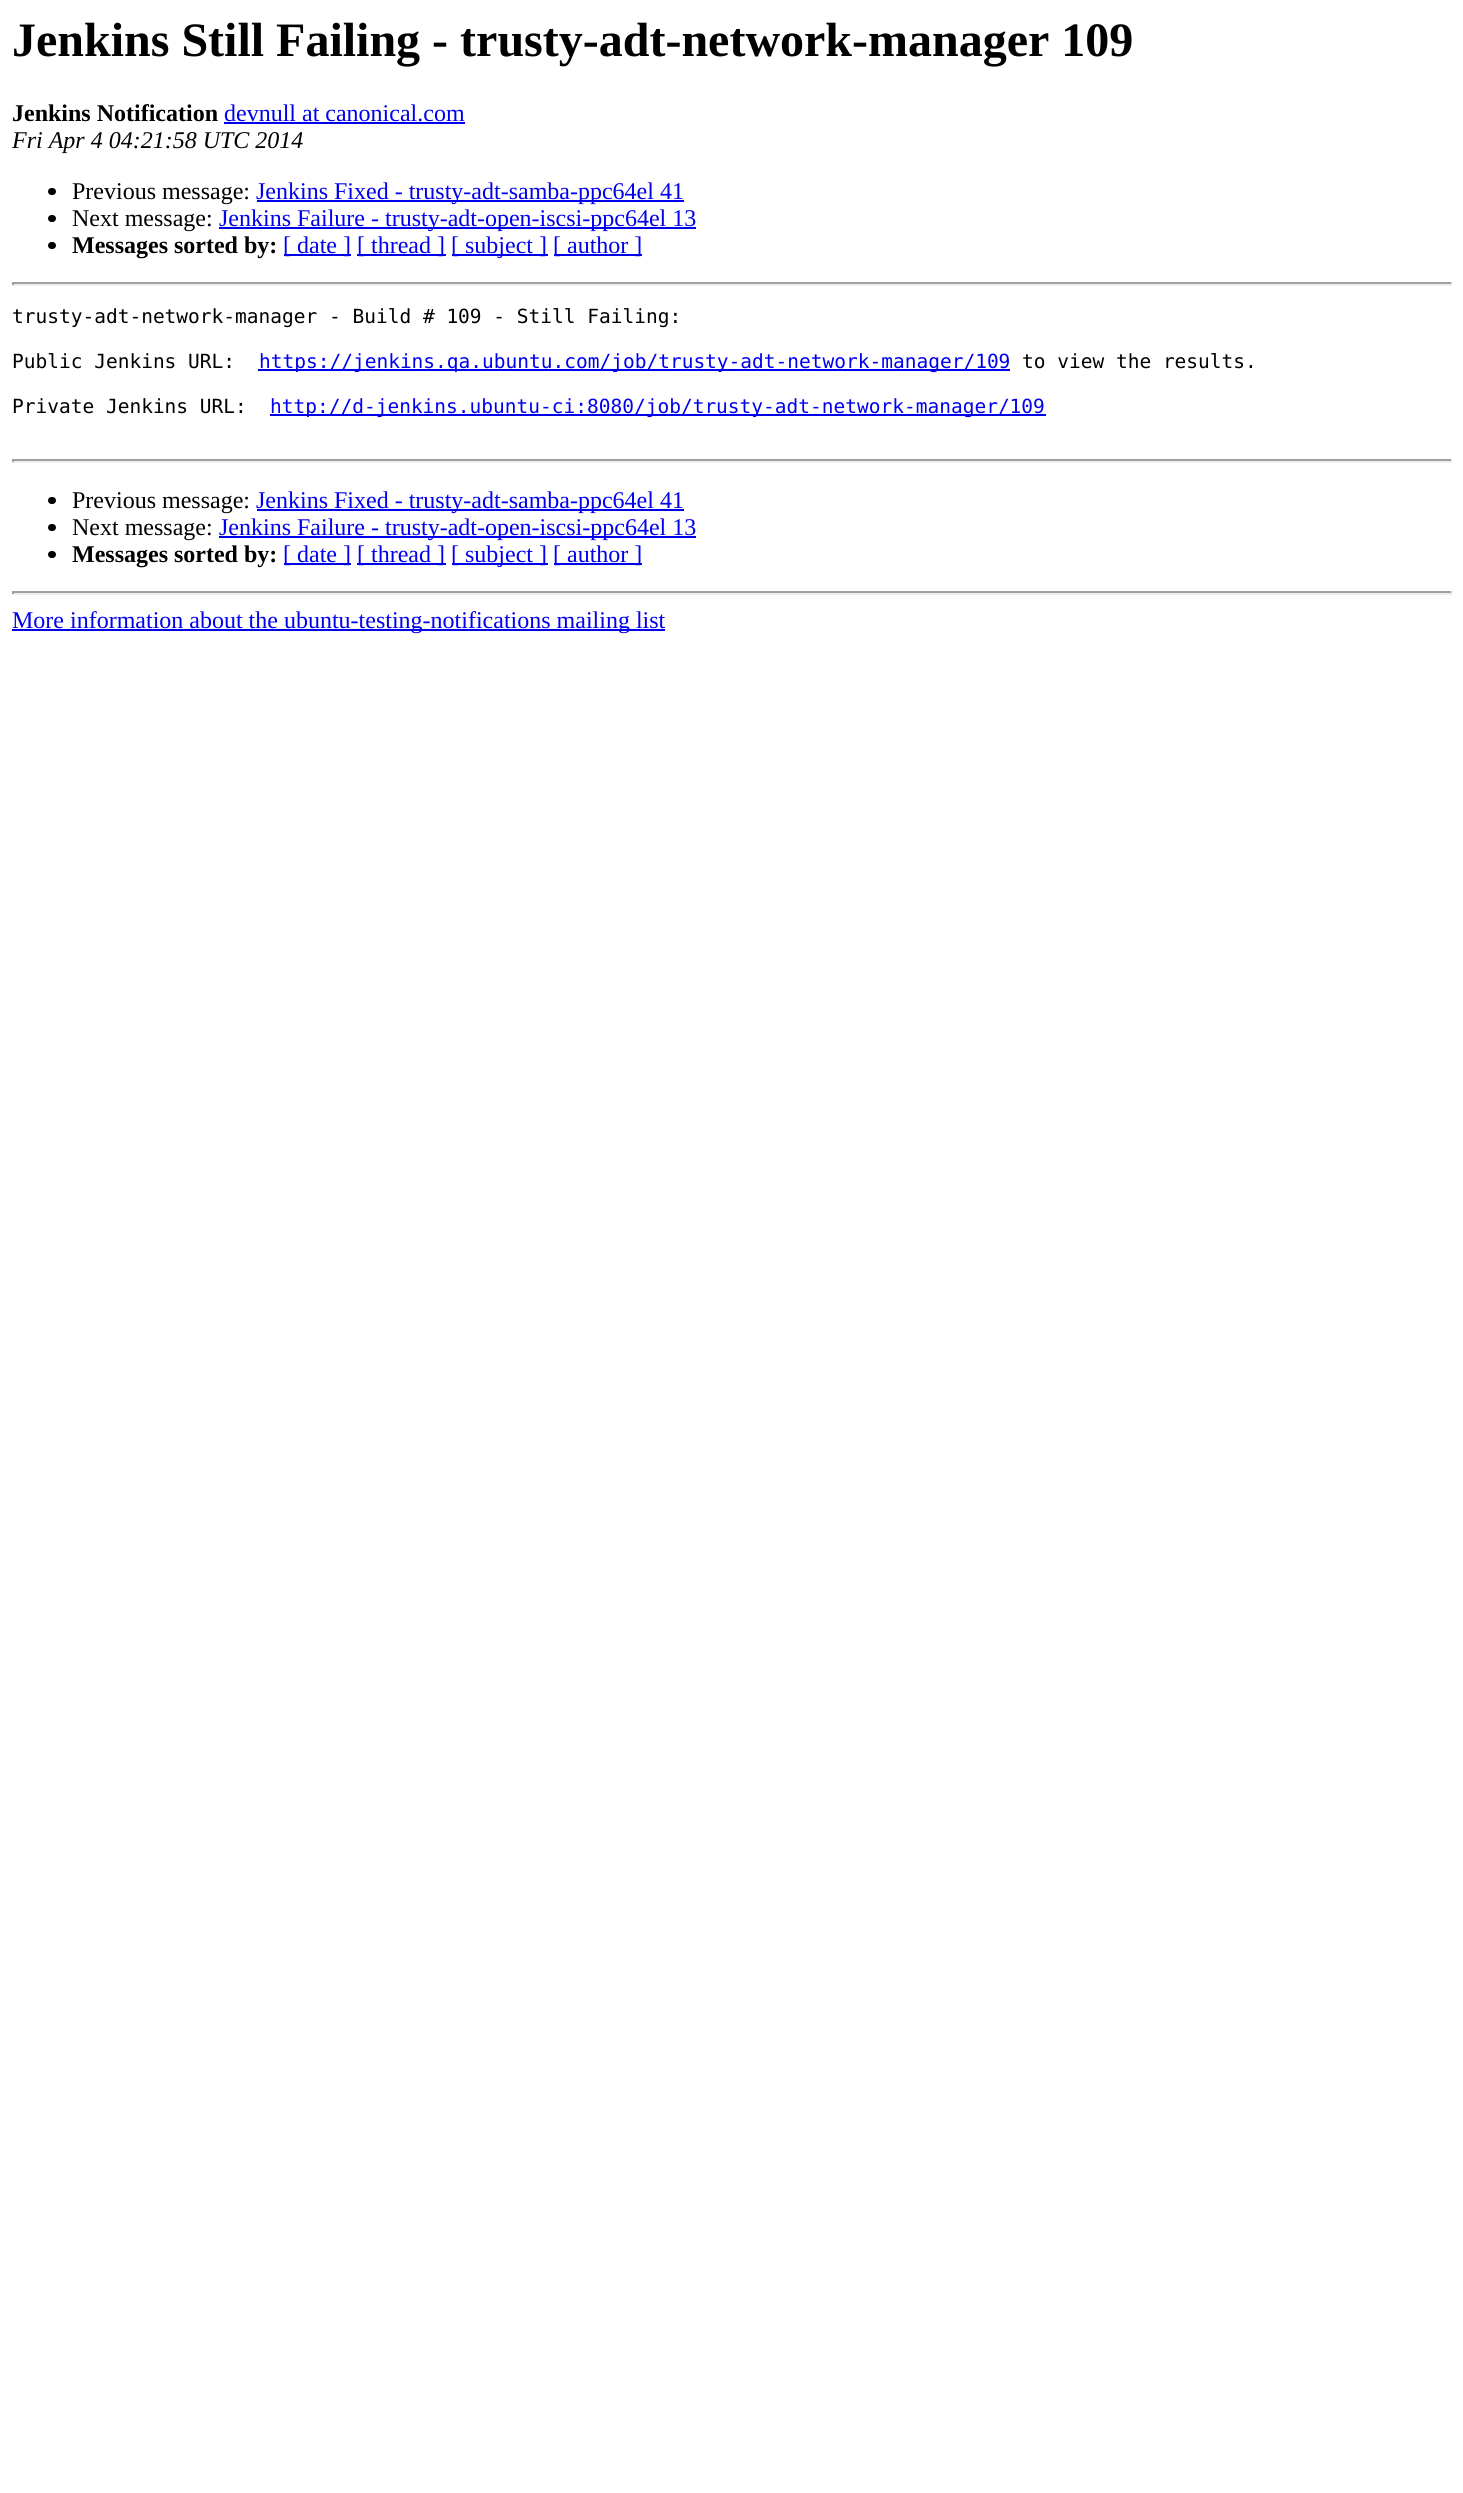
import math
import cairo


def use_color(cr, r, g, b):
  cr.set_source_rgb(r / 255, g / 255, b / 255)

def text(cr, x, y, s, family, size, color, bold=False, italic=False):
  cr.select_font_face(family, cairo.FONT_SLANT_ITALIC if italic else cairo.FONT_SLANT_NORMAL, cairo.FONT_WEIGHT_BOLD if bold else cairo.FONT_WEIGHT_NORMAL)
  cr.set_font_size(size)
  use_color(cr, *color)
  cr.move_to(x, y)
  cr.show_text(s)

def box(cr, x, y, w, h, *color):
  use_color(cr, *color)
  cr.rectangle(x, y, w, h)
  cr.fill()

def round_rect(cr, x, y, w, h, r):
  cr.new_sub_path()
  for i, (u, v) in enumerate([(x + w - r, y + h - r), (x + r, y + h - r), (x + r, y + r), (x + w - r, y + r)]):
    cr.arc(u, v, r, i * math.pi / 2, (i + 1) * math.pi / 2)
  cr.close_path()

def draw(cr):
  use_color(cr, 255, 255, 255)
  cr.paint()
  box(cr, 224, 122, 241, 2, 0, 0, 238)
  use_color(cr, 0, 0, 0)
  round_rect(cr, 48, 188, 8, 7, 3.5)
  cr.fill()
  box(cr, 257, 200, 427, 2, 0, 0, 238)
  use_color(cr, 0, 0, 0)
  round_rect(cr, 48, 215, 8, 7, 3.5)
  cr.fill()
  box(cr, 219, 227, 477, 2, 0, 0, 238)
  use_color(cr, 0, 0, 0)
  round_rect(cr, 48, 242, 8, 7, 3.5)
  cr.fill()
  box(cr, 284, 254, 67, 2, 0, 0, 238)
  box(cr, 357, 254, 89, 2, 0, 0, 238)
  box(cr, 452, 254, 96, 2, 0, 0, 238)
  box(cr, 554, 254, 88, 2, 0, 0, 238)
  box(cr, 12, 282, 1440, 2, 159, 159, 159)
  box(cr, 1451, 282, 2, 3, 238, 238, 238)
  box(cr, 12, 284, 1440, 2, 238, 238, 238)
  box(cr, 12, 282, 2, 3, 159, 159, 159)
  box(cr, 258, 369, 752, 2, 0, 0, 238)
  box(cr, 270, 414, 776, 2, 0, 0, 238)
  box(cr, 12, 459, 1440, 2, 159, 159, 159)
  box(cr, 1451, 459, 2, 3, 238, 238, 238)
  box(cr, 12, 461, 1440, 2, 238, 238, 238)
  box(cr, 12, 459, 2, 3, 159, 159, 159)
  use_color(cr, 0, 0, 0)
  round_rect(cr, 48, 497, 8, 7, 3.5)
  cr.fill()
  box(cr, 257, 509, 427, 2, 0, 0, 238)
  use_color(cr, 0, 0, 0)
  round_rect(cr, 48, 524, 8, 7, 3.5)
  cr.fill()
  box(cr, 219, 536, 477, 2, 0, 0, 238)
  use_color(cr, 0, 0, 0)
  round_rect(cr, 48, 551, 8, 7, 3.5)
  cr.fill()
  box(cr, 284, 563, 67, 2, 0, 0, 238)
  box(cr, 357, 563, 89, 2, 0, 0, 238)
  box(cr, 452, 563, 96, 2, 0, 0, 238)
  box(cr, 554, 563, 88, 2, 0, 0, 238)
  box(cr, 12, 591, 1440, 2, 159, 159, 159)
  box(cr, 1451, 591, 2, 3, 238, 238, 238)
  box(cr, 12, 593, 1440, 2, 238, 238, 238)
  box(cr, 12, 591, 2, 3, 159, 159, 159)
  box(cr, 12, 629, 653, 2, 0, 0, 238)
  text(cr, 12, 56, "Jenkins Still Failing - trusty-adt-network-manager 109", "Liberation Serif", 48, (0, 0, 0), bold=True)
  text(cr, 12, 121, "Jenkins Notification", "Liberation Serif", 24, (0, 0, 0), bold=True)
  text(cr, 224, 121, "devnull at canonical.com", "Liberation Serif", 24, (0, 0, 238))
  text(cr, 12, 148, "Fri Apr 4 04:21:58 UTC 2014", "Liberation Serif", 24, (0, 0, 0), italic=True)
  text(cr, 72, 199, "Previous message:", "Liberation Serif", 24, (0, 0, 0))
  text(cr, 256, 199, "Jenkins Fixed - trusty-adt-samba-ppc64el 41", "Liberation Serif", 24, (0, 0, 238))
  text(cr, 72, 226, "Next message:", "Liberation Serif", 24, (0, 0, 0))
  text(cr, 219, 226, "Jenkins Failure - trusty-adt-open-iscsi-ppc64el 13", "Liberation Serif", 24, (0, 0, 238))
  text(cr, 72, 253, "Messages sorted by:", "Liberation Serif", 24, (0, 0, 0), bold=True)
  text(cr, 283, 253, "[ date ]", "Liberation Serif", 24, (0, 0, 238))
  text(cr, 357, 253, "[ thread ]", "Liberation Serif", 24, (0, 0, 238))
  text(cr, 451, 253, "[ subject ]", "Liberation Serif", 24, (0, 0, 238))
  text(cr, 553, 253, "[ author ]", "Liberation Serif", 24, (0, 0, 238))
  text(cr, 12, 323, "trusty-adt-network-manager - Build # 109 - Still Failing:", "DejaVu Sans Mono", 19.5, (0, 0, 0))
  text(cr, 12, 368, "Public Jenkins URL:", "DejaVu Sans Mono", 19.5, (0, 0, 0))
  text(cr, 259, 368, "https://jenkins.qa.ubuntu.com/job/trusty-adt-network-manager/109", "DejaVu Sans Mono", 19.5, (0, 0, 238))
  text(cr, 1022, 368, "to view the results.", "DejaVu Sans Mono", 19.5, (0, 0, 0))
  text(cr, 12, 413, "Private Jenkins URL:", "DejaVu Sans Mono", 19.5, (0, 0, 0))
  text(cr, 270, 413, "http://d-jenkins.ubuntu-ci:8080/job/trusty-adt-network-manager/109", "DejaVu Sans Mono", 19.5, (0, 0, 238))
  text(cr, 72, 508, "Previous message:", "Liberation Serif", 24, (0, 0, 0))
  text(cr, 256, 508, "Jenkins Fixed - trusty-adt-samba-ppc64el 41", "Liberation Serif", 24, (0, 0, 238))
  text(cr, 72, 535, "Next message:", "Liberation Serif", 24, (0, 0, 0))
  text(cr, 219, 535, "Jenkins Failure - trusty-adt-open-iscsi-ppc64el 13", "Liberation Serif", 24, (0, 0, 238))
  text(cr, 72, 562, "Messages sorted by:", "Liberation Serif", 24, (0, 0, 0), bold=True)
  text(cr, 283, 562, "[ date ]", "Liberation Serif", 24, (0, 0, 238))
  text(cr, 357, 562, "[ thread ]", "Liberation Serif", 24, (0, 0, 238))
  text(cr, 451, 562, "[ subject ]", "Liberation Serif", 24, (0, 0, 238))
  text(cr, 553, 562, "[ author ]", "Liberation Serif", 24, (0, 0, 238))
  text(cr, 12, 628, "More information about the ubuntu-testing-notifications mailing list", "Liberation Serif", 24, (0, 0, 238))


surface = cairo.ImageSurface(cairo.FORMAT_RGB24, 1463, 2493)
cr = cairo.Context(surface)
options = cairo.FontOptions()
options.set_hint_metrics(cairo.HINT_METRICS_OFF)
options.set_hint_style(cairo.HINT_STYLE_NONE)
cr.set_font_options(options)
cr.set_miter_limit(4)
draw(cr)
surface.write_to_png("out.png")
